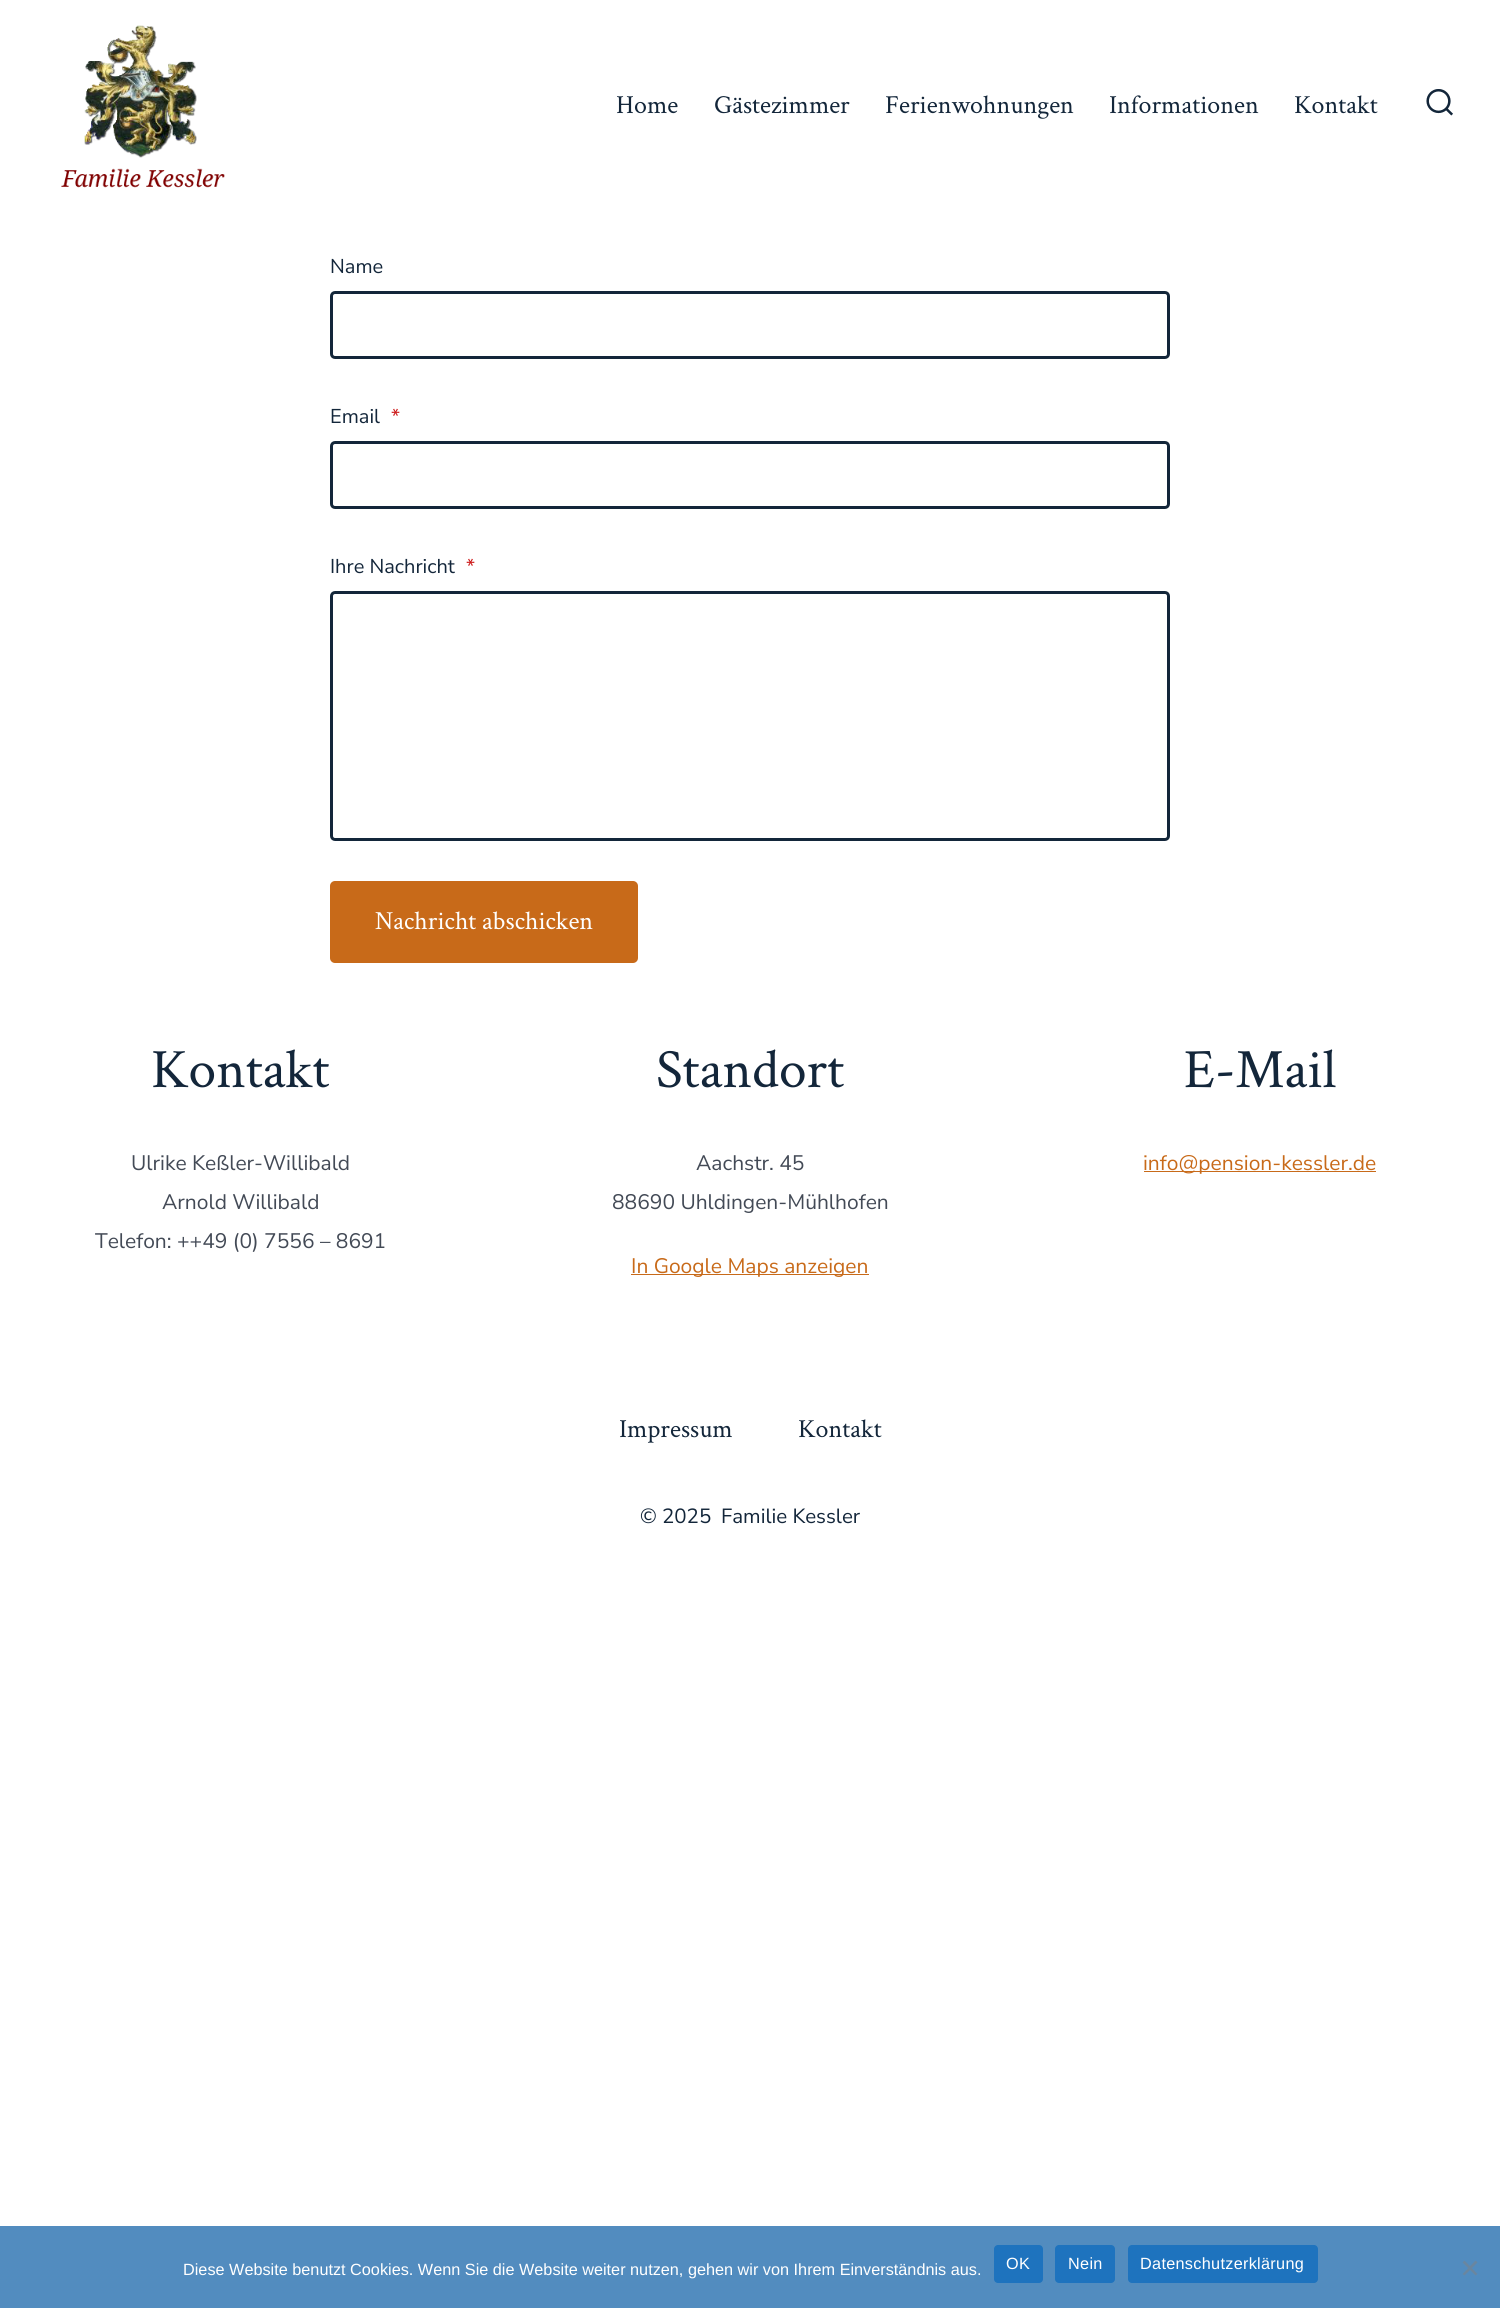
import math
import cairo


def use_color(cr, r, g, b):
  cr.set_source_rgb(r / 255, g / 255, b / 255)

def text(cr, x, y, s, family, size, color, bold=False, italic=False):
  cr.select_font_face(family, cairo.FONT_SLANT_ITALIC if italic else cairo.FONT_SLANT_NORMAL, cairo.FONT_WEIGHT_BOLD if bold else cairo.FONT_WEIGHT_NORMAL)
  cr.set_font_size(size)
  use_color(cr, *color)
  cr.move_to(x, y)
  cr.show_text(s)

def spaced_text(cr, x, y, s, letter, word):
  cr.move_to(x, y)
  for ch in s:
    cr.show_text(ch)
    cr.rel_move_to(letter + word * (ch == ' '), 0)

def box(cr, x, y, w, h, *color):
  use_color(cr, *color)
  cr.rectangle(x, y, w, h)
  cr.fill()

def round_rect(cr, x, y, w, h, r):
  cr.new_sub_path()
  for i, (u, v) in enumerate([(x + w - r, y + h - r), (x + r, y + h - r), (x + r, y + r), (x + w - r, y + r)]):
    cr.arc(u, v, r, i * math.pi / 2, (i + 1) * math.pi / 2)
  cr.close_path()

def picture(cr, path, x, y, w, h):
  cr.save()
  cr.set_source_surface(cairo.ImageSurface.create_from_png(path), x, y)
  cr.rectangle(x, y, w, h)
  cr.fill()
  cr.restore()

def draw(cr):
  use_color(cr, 255, 255, 255)
  cr.paint()
  picture(cr, "img_01.png", 61, 25, 164, 163)
  picture(cr, "img_02.png", 1426, 89, 27, 27)
  round_rect(cr, 331.5, 292.5, 837, 65, 3.5)
  use_color(cr, 19, 38, 58)
  cr.set_line_width(3)
  cr.stroke()
  round_rect(cr, 331.5, 442.5, 837, 65, 3.5)
  cr.stroke()
  round_rect(cr, 331.5, 592.5, 837, 247, 3.5)
  cr.stroke()
  use_color(cr, 200, 106, 25)
  round_rect(cr, 330, 881, 308, 82, 5)
  cr.fill()
  box(cr, 631, 1274, 238, 1, 200, 106, 25)
  box(cr, 1144, 1171, 232, 1, 200, 106, 25)
  box(cr, 0, 2226, 1500, 82, 82, 140, 191)
  use_color(cr, 30, 115, 190)
  round_rect(cr, 994, 2245, 49, 38, 4)
  cr.fill()
  round_rect(cr, 1055, 2245, 60, 38, 4)
  cr.fill()
  round_rect(cr, 1128, 2245, 190, 38, 4)
  cr.fill()
  use_color(cr, 105, 134, 160)
  cr.new_path()
  cr.move_to(1475.5, 2260.5)
  cr.line_to(1477.5, 2262.5)
  cr.line_to(1464.5, 2275.5)
  cr.line_to(1462.5, 2274)
  cr.close_path()
  cr.fill()
  cr.new_path()
  cr.move_to(1462.5, 2262.5)
  cr.line_to(1464.5, 2260.5)
  cr.line_to(1477.5, 2274)
  cr.line_to(1475.5, 2275.5)
  cr.close_path()
  cr.fill()
  text(cr, 616, 113, "Home", "Crimson Text", 26, (19, 38, 58))
  text(cr, 714, 113, "Gästezimmer", "Crimson Text", 26, (19, 38, 58))
  text(cr, 885, 113, "Ferienwohnungen", "Crimson Text", 26, (19, 38, 58))
  text(cr, 1109, 113, "Informationen", "Crimson Text", 26, (19, 38, 58))
  text(cr, 1294, 113, "Kontakt", "Crimson Text", 26, (19, 38, 58))
  text(cr, 330, 273, "Name", "Nunito Sans", 20, (19, 38, 58))
  text(cr, 330, 423, "Email", "Nunito Sans", 20, (19, 38, 58))
  text(cr, 391, 423, "*", "Nunito Sans", 20, (204, 24, 24))
  text(cr, 330, 573, "Ihre Nachricht", "Nunito Sans", 20, (19, 38, 58))
  text(cr, 466, 573, "*", "Nunito Sans", 20, (204, 24, 24))
  text(cr, 375, 929, "Nachricht abschicken", "Crimson Text", 26, (255, 255, 255))
  text(cr, 151, 1087, "Kontakt", "Crimson Text", 55.5, (19, 38, 58))
  text(cr, 131, 1170, "Ulrike Keßler-Willibald", "Nunito Sans", 21, (67, 74, 86))
  text(cr, 162, 1209, "Arnold Willibald", "Nunito Sans", 21, (67, 74, 86))
  text(cr, 95, 1248, "Telefon: ++49 (0) 7556 – 8691", "Nunito Sans", 21, (67, 74, 86))
  text(cr, 656, 1087, "Standort", "Crimson Text", 55.5, (19, 38, 58))
  text(cr, 696, 1170, "Aachstr. 45", "Nunito Sans", 21, (67, 74, 86))
  text(cr, 612, 1209, "88690 Uhldingen-Mühlhofen", "Nunito Sans", 21, (67, 74, 86))
  text(cr, 631, 1273, "In Google Maps anzeigen", "Nunito Sans", 21, (200, 106, 25))
  text(cr, 1184, 1087, "E-Mail", "Crimson Text", 55.5, (19, 38, 58))
  text(cr, 1143, 1170, "info@pension-kessler.de", "Nunito Sans", 21, (200, 106, 25))
  text(cr, 619, 1437, "Impressum", "Crimson Text", 26, (19, 38, 58))
  text(cr, 798, 1437, "Kontakt", "Crimson Text", 26, (19, 38, 58))
  text(cr, 640, 1523, "© 2025", "Nunito Sans", 20.5, (19, 38, 58))
  text(cr, 721, 1523, "Familie Kessler", "Nunito Sans", 20.5, (19, 38, 58))
  text(cr, 183, 2275, "Diese Website benutzt Cookies. Wenn Sie die Website weiter nutzen, gehen wir von Ihrem Einverständnis aus.", "Liberation Sans", 16.25, (255, 255, 255))
  spaced_text(cr, 1006, 2269, "OK", 0.3, 0)
  spaced_text(cr, 1068, 2269, "Nein", 0.3, 0)
  spaced_text(cr, 1140, 2269, "Datenschutzerklärung", 0.3, 0)


surface = cairo.ImageSurface(cairo.FORMAT_RGB24, 1500, 2308)
cr = cairo.Context(surface)
options = cairo.FontOptions()
options.set_hint_metrics(cairo.HINT_METRICS_OFF)
options.set_hint_style(cairo.HINT_STYLE_NONE)
cr.set_font_options(options)
cr.set_miter_limit(4)
draw(cr)
surface.write_to_png("out.png")
